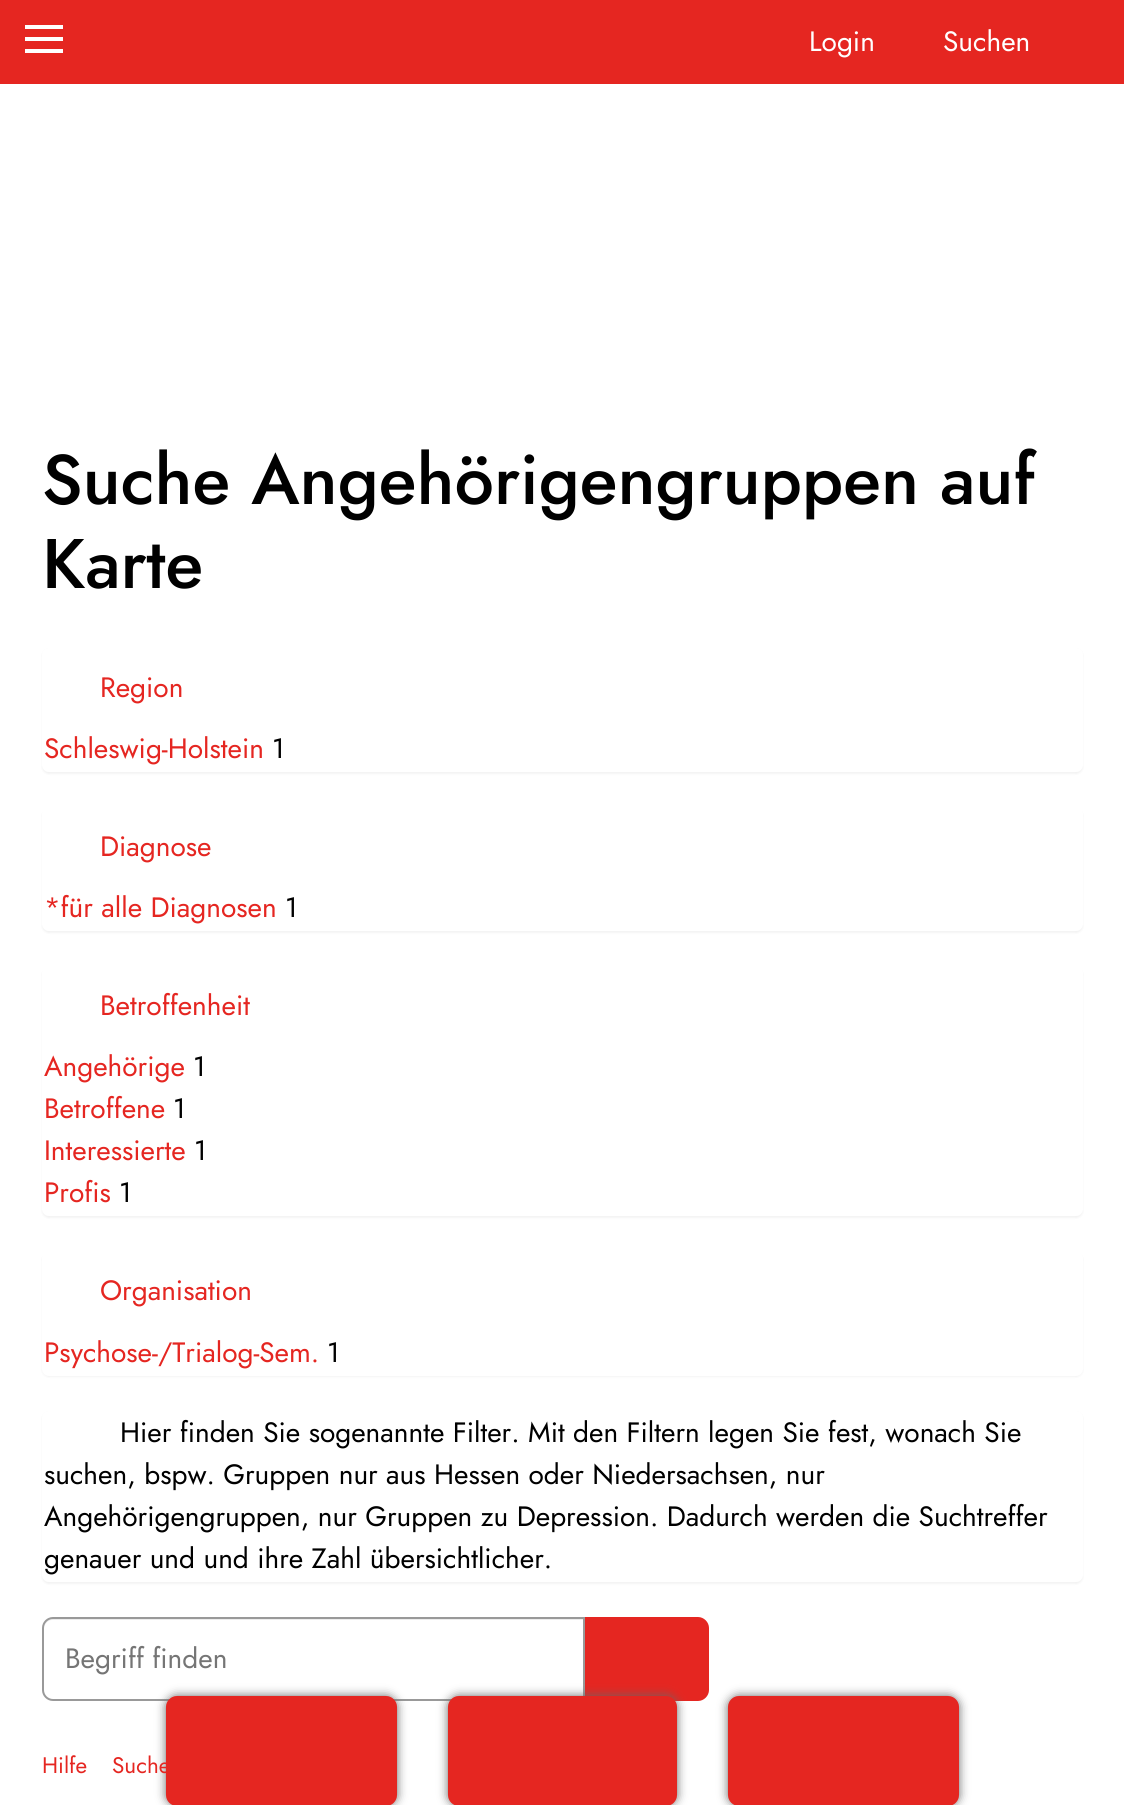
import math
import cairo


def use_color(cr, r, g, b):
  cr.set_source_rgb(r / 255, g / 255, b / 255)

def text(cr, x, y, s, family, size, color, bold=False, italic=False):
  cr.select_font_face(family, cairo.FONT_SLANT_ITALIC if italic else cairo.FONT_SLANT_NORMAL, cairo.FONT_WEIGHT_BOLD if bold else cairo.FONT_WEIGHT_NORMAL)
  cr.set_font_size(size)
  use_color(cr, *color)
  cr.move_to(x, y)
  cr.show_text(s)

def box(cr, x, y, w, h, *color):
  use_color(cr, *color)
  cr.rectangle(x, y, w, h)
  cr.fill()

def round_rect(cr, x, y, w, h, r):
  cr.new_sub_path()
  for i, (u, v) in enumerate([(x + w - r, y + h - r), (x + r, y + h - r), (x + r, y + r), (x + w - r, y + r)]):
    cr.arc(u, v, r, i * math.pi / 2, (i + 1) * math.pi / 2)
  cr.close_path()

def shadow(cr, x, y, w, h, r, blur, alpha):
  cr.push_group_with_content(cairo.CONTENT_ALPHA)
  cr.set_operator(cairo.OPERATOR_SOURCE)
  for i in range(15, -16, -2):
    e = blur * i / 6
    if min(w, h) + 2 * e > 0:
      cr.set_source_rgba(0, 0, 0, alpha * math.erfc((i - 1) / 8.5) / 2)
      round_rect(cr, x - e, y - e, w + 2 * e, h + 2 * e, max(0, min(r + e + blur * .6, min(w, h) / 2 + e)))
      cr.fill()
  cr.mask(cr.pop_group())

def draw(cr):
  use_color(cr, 255, 255, 255)
  cr.paint()
  box(cr, 0, 0, 1124, 84, 229, 38, 33)
  box(cr, 25, 37, 38, 4, 255, 255, 255)
  box(cr, 25, 25, 38, 4, 255, 255, 255)
  box(cr, 25, 49, 38, 4, 255, 255, 255)
  use_color(cr, 0, 0, 0)
  shadow(cr, 42, 649, 1041, 125, 7, 1, 0.05)
  use_color(cr, 255, 255, 255)
  round_rect(cr, 42, 648, 1041, 124, 7)
  cr.fill()
  use_color(cr, 0, 0, 0)
  shadow(cr, 42, 809, 1041, 124, 7, 1, 0.05)
  use_color(cr, 255, 255, 255)
  round_rect(cr, 42, 807, 1041, 124, 7)
  cr.fill()
  use_color(cr, 0, 0, 0)
  shadow(cr, 42, 968, 1041, 250, 7, 1, 0.05)
  use_color(cr, 255, 255, 255)
  round_rect(cr, 42, 966, 1041, 250, 7)
  cr.fill()
  use_color(cr, 0, 0, 0)
  shadow(cr, 42, 1253, 1041, 124, 7, 1, 0.05)
  use_color(cr, 255, 255, 255)
  round_rect(cr, 42, 1251, 1041, 125, 7)
  cr.fill()
  use_color(cr, 0, 0, 0)
  shadow(cr, 42, 1412, 1041, 172, 7, 1, 0.05)
  use_color(cr, 255, 255, 255)
  round_rect(cr, 42, 1411, 1041, 171, 7)
  cr.fill()
  use_color(cr, 236, 236, 236)
  cr.new_path()
  cr.move_to(52, 1620)
  cr.line_to(583, 1620)
  cr.line_to(583, 1619)
  cr.line_to(53, 1619)
  cr.curve_to(47, 1619, 44, 1624, 44, 1629)
  cr.curve_to(44, 1624, 48, 1620, 52, 1620)
  cr.close_path()
  cr.fill()
  cr.new_path()
  cr.move_to(53, 1618)
  cr.line_to(584, 1618)
  cr.line_to(584, 1700)
  cr.line_to(53, 1700)
  cr.curve_to(47.5, 1700, 43, 1695.5, 43, 1690)
  cr.line_to(43, 1628)
  cr.curve_to(43, 1622.5, 47.5, 1618, 53, 1618)
  cr.close_path()
  use_color(cr, 153, 153, 153)
  cr.stroke()
  use_color(cr, 229, 38, 33)
  cr.new_path()
  cr.move_to(587.5, 1619.5)
  cr.line_to(698, 1619.5)
  cr.curve_to(702.5, 1619.5, 706.5, 1623.5, 706.5, 1628)
  cr.line_to(706.5, 1690)
  cr.curve_to(706.5, 1694.5, 702.5, 1698.5, 698, 1698.5)
  cr.line_to(587.5, 1698.5)
  cr.close_path()
  cr.fill_preserve()
  cr.set_line_width(5)
  cr.stroke()
  use_color(cr, 102, 102, 102)
  shadow(cr, 166, 1696, 231, 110, 11, 5, 1)
  use_color(cr, 229, 38, 33)
  round_rect(cr, 166, 1696, 231, 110, 11)
  cr.fill()
  use_color(cr, 102, 102, 102)
  shadow(cr, 448, 1696, 229, 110, 11, 5, 1)
  use_color(cr, 229, 38, 33)
  round_rect(cr, 448, 1696, 229, 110, 11)
  cr.fill()
  use_color(cr, 102, 102, 102)
  shadow(cr, 728, 1696, 231, 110, 11, 5, 1)
  use_color(cr, 229, 38, 33)
  round_rect(cr, 728, 1696, 231, 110, 11)
  cr.fill()
  text(cr, 809, 51, "Login", "Jost", 28, (255, 255, 255))
  text(cr, 943, 51, "Suchen", "Jost", 28, (255, 255, 255))
  text(cr, 42, 504, "Suche Angehörigengruppen auf", "Jost Medium", 70, (0, 0, 0))
  text(cr, 42, 588, "Karte", "Jost Medium", 70, (0, 0, 0))
  text(cr, 100, 697, "Region", "Jost", 28, (229, 38, 33))
  text(cr, 44, 758, "Schleswig-Holstein", "Jost", 28, (229, 38, 33))
  text(cr, 272, 758, "1", "Jost", 28, (0, 0, 0))
  text(cr, 100, 856, "Diagnose", "Jost", 28, (229, 38, 33))
  text(cr, 44, 917, "*für alle Diagnosen", "Jost", 28, (229, 38, 33))
  text(cr, 285, 917, "1", "Jost", 28, (0, 0, 0))
  text(cr, 100, 1015, "Betroffenheit", "Jost", 28, (229, 38, 33))
  text(cr, 44, 1076, "Angehörige", "Jost", 28, (229, 38, 33))
  text(cr, 193, 1076, "1", "Jost", 28, (0, 0, 0))
  text(cr, 44, 1118, "Betroffene", "Jost", 28, (229, 38, 33))
  text(cr, 173, 1118, "1", "Jost", 28, (0, 0, 0))
  text(cr, 44, 1160, "Interessierte", "Jost", 28, (229, 38, 33))
  text(cr, 194, 1160, "1", "Jost", 28, (0, 0, 0))
  text(cr, 44, 1202, "Profis", "Jost", 28, (229, 38, 33))
  text(cr, 119, 1202, "1", "Jost", 28, (0, 0, 0))
  text(cr, 100, 1300, "Organisation", "Jost", 28, (229, 38, 33))
  text(cr, 44, 1362, "Psychose-/Trialog-Sem.", "Jost", 28, (229, 38, 33))
  text(cr, 327, 1362, "1", "Jost", 28, (0, 0, 0))
  text(cr, 120, 1442, "Hier finden Sie sogenannte Filter. Mit den Filtern legen Sie fest, wonach Sie", "Jost", 28, (0, 0, 0))
  text(cr, 44, 1484, "suchen, bspw. Gruppen nur aus Hessen oder Niedersachsen, nur", "Jost", 28, (0, 0, 0))
  text(cr, 44, 1526, "Angehörigengruppen, nur Gruppen zu Depression. Dadurch werden die Suchtreffer", "Jost", 28, (0, 0, 0))
  text(cr, 44, 1568, "genauer und und ihre Zahl übersichtlicher.", "Jost", 28, (0, 0, 0))
  text(cr, 65, 1668, "Begriff finden", "Jost", 28, (117, 117, 117))
  text(cr, 42, 1773, "Hilfe", "Jost", 22.5, (229, 38, 33))
  text(cr, 112, 1773, "Suche", "Jost", 22.5, (229, 38, 33))


surface = cairo.ImageSurface(cairo.FORMAT_RGB24, 1124, 1805)
cr = cairo.Context(surface)
options = cairo.FontOptions()
options.set_hint_metrics(cairo.HINT_METRICS_OFF)
options.set_hint_style(cairo.HINT_STYLE_NONE)
cr.set_font_options(options)
cr.set_miter_limit(4)
draw(cr)
surface.write_to_png("out.png")
